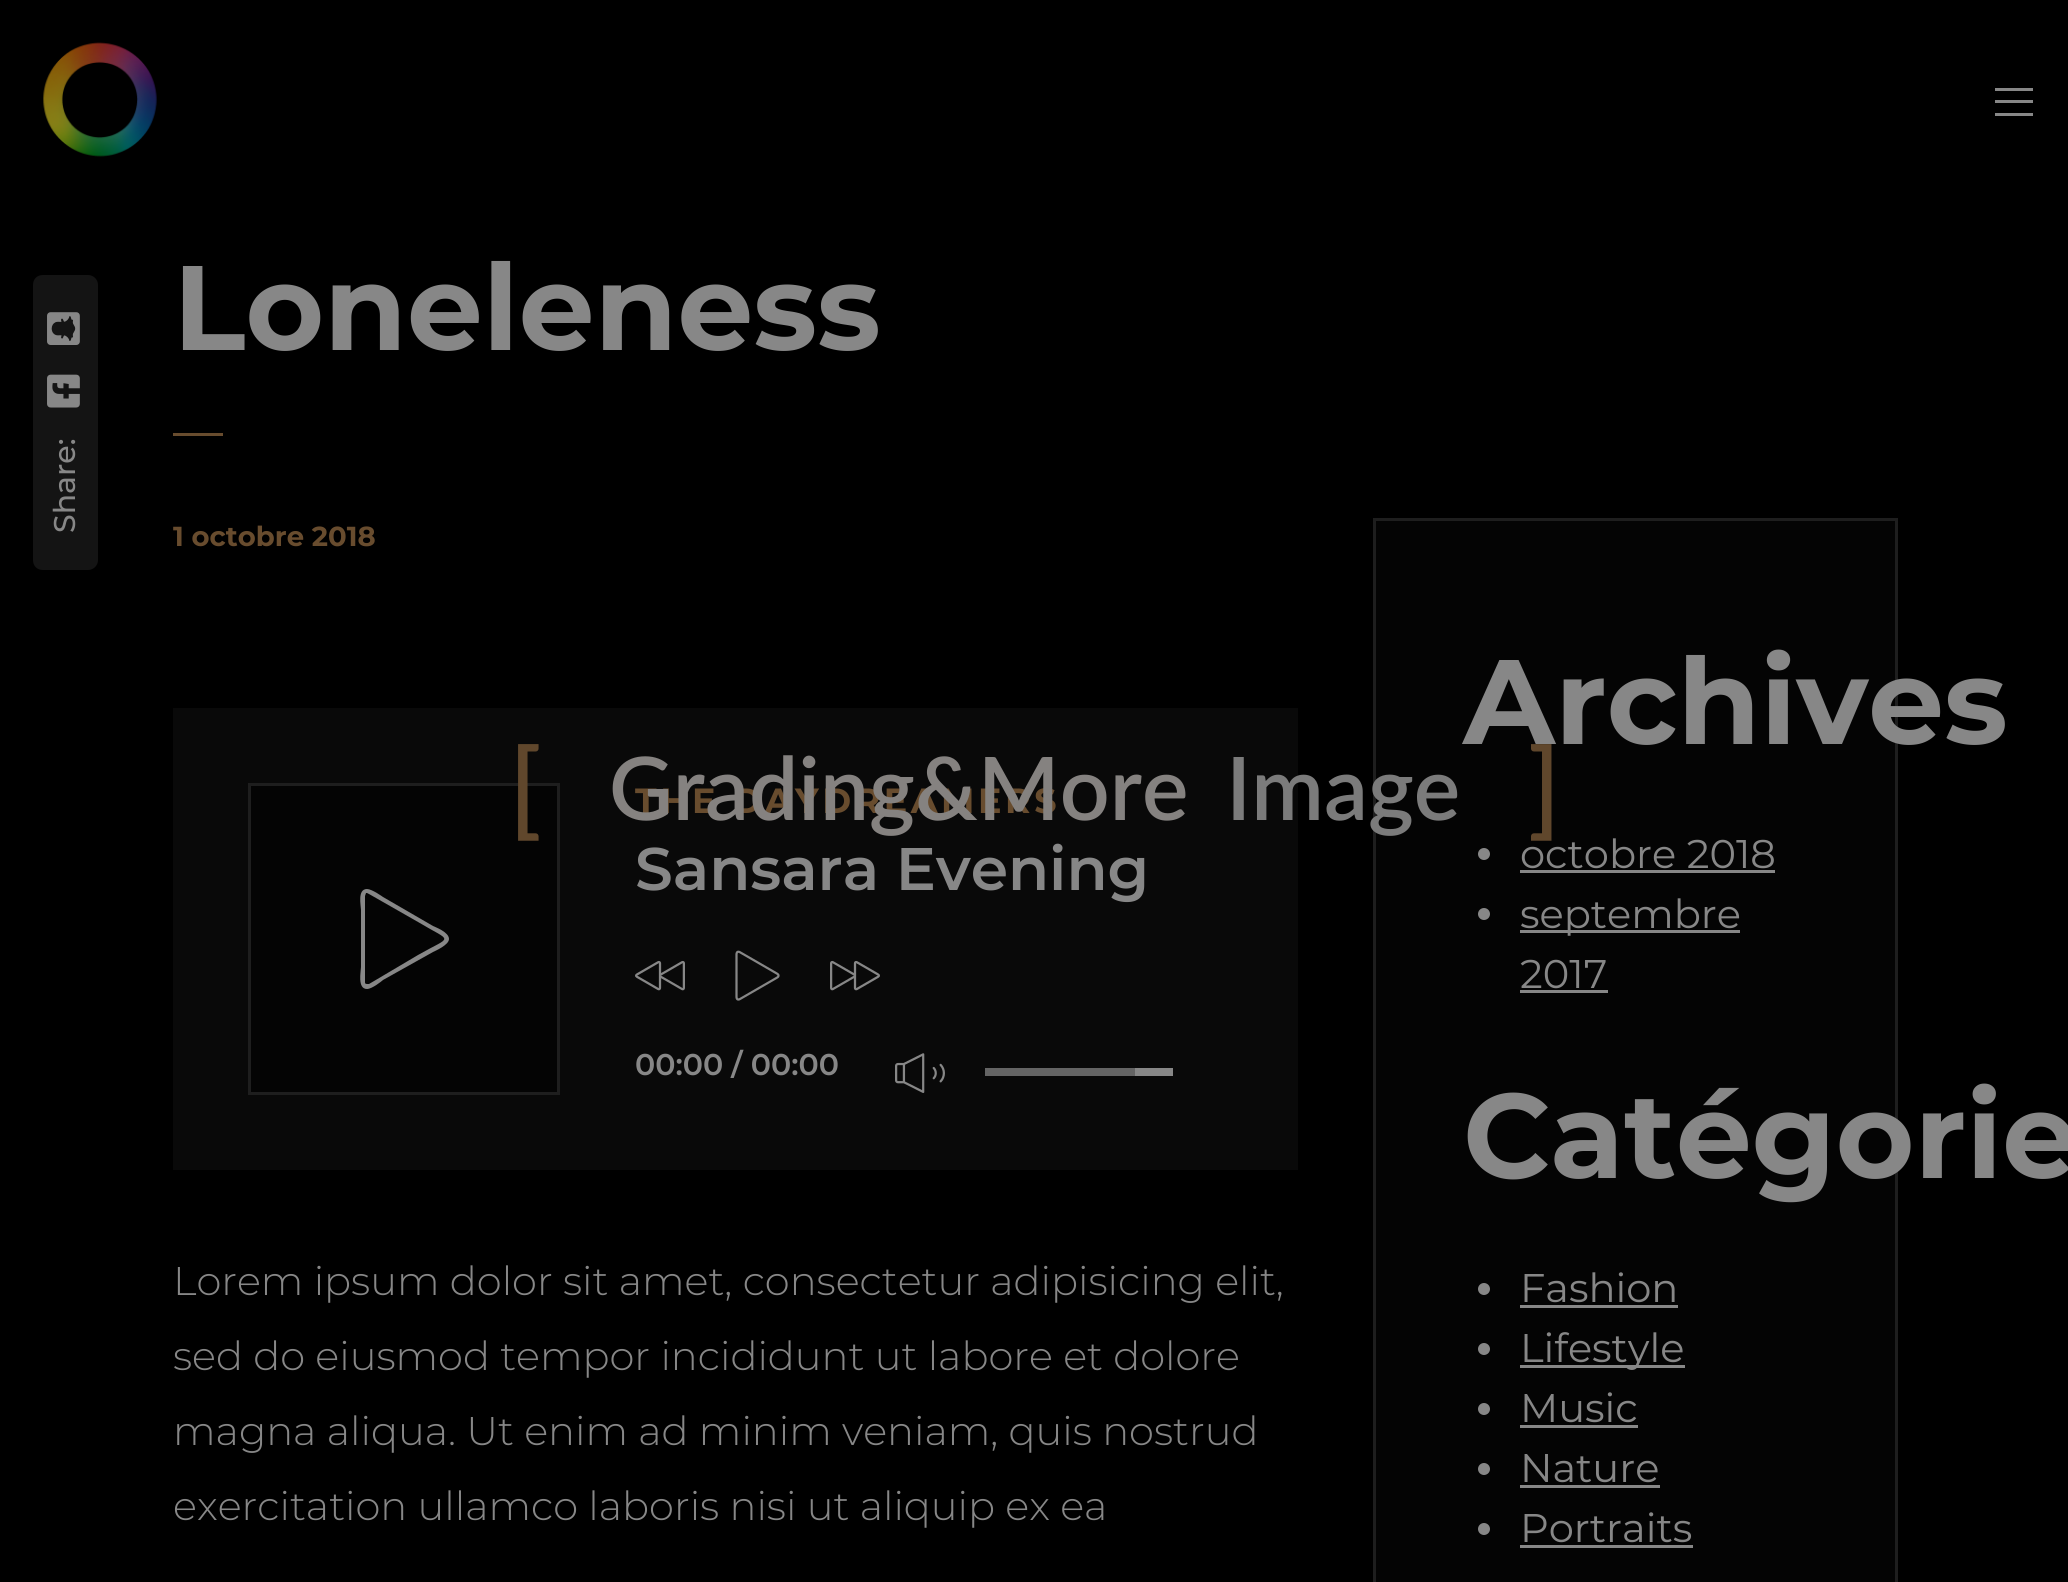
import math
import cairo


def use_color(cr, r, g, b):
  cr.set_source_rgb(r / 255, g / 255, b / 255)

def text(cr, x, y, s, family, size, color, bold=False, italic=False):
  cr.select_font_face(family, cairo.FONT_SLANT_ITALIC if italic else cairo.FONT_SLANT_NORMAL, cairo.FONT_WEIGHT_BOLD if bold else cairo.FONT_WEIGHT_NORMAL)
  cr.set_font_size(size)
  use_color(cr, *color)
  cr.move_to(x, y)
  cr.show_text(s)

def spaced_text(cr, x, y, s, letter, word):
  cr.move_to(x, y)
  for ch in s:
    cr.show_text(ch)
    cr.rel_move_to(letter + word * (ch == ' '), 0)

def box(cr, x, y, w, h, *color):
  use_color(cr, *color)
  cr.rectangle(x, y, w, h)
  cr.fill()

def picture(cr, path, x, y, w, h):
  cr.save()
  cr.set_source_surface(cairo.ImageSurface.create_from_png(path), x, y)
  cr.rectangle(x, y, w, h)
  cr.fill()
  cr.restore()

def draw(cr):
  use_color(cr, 0, 0, 0)
  cr.paint()
  picture(cr, "img_01.png", 43, 42, 114, 115)
  box(cr, 1995, 88, 38, 3, 135, 135, 135)
  box(cr, 1995, 100, 38, 3, 135, 135, 135)
  box(cr, 1995, 113, 38, 3, 135, 135, 135)
  box(cr, 173, 433, 50, 3, 104, 76, 46)
  use_color(cr, 20, 20, 20)
  cr.new_path()
  cr.move_to(33, 560)
  cr.line_to(33, 285)
  cr.curve_to(33, 279, 37, 275, 43, 275)
  cr.line_to(88, 275)
  cr.curve_to(93, 275, 98, 279, 98, 285)
  cr.line_to(98, 560)
  cr.curve_to(98, 566, 93, 570, 88, 570)
  cr.line_to(43, 570)
  cr.curve_to(37, 570, 33, 566, 33, 560)
  cr.close_path()
  cr.fill()
  picture(cr, "img_02.png", 47, 312, 33, 33)
  picture(cr, "img_03.png", 47, 374, 33, 34)
  box(cr, 173, 708, 1125, 462, 9, 9, 9)
  use_color(cr, 4, 4, 4)
  cr.rectangle(249.5, 784.5, 309, 309)
  cr.fill_preserve()
  use_color(cr, 30, 30, 30)
  cr.set_line_width(3)
  cr.stroke()
  use_color(cr, 135, 135, 135)
  cr.new_path()
  cr.move_to(367, 989)
  cr.curve_to(357, 989, 361, 971, 361, 967)
  cr.line_to(361, 910)
  cr.curve_to(361, 906, 357, 889, 367, 889)
  cr.curve_to(372, 889, 383, 897, 383, 897)
  cr.line_to(433, 926)
  cr.curve_to(435, 927, 449, 932, 449, 939)
  cr.curve_to(449, 945, 435, 951, 433, 952)
  cr.line_to(383, 980)
  cr.curve_to(382, 981, 372, 989, 367, 989)
  cr.close_path()
  cr.move_to(367, 893)
  cr.line_to(366, 893)
  cr.line_to(365, 896)
  cr.line_to(365, 982)
  cr.curve_to(365, 983, 365, 984, 367, 984)
  cr.line_to(369, 984)
  cr.line_to(418, 955)
  cr.curve_to(453, 935, 453, 943, 418, 922)
  cr.line_to(369, 894)
  cr.close_path()
  cr.fill()
  picture(cr, "img_04.png", 635, 960, 50, 31)
  picture(cr, "img_05.png", 735, 950, 45, 51)
  picture(cr, "img_06.png", 830, 960, 50, 31)
  picture(cr, "img_07.png", 895, 1053, 50, 40)
  box(cr, 1135, 1068, 38, 8, 135, 135, 135)
  box(cr, 985, 1068, 150, 8, 100, 100, 100)
  use_color(cr, 4, 4, 4)
  cr.rectangle(1374.5, 519.5, 522, 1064)
  cr.fill_preserve()
  use_color(cr, 30, 30, 30)
  cr.stroke()
  use_color(cr, 135, 135, 135)
  cr.arc(1484, 854, 6, 0, 2 * math.pi)
  cr.fill()
  box(cr, 1520, 870, 255, 3, 135, 135, 135)
  cr.arc(1484, 914, 6, 0, 2 * math.pi)
  cr.fill()
  box(cr, 1520, 930, 220, 3, 135, 135, 135)
  box(cr, 1520, 990, 88, 3, 135, 135, 135)
  cr.arc(1484, 1289, 6, 0, 2 * math.pi)
  cr.fill()
  box(cr, 1520, 1305, 158, 3, 135, 135, 135)
  cr.arc(1484, 1349, 6, 0, 2 * math.pi)
  cr.fill()
  box(cr, 1520, 1365, 165, 3, 135, 135, 135)
  cr.arc(1484, 1409, 6, 0, 2 * math.pi)
  cr.fill()
  box(cr, 1520, 1425, 118, 3, 135, 135, 135)
  cr.arc(1484, 1469, 6, 0, 2 * math.pi)
  cr.fill()
  box(cr, 1520, 1485, 140, 3, 135, 135, 135)
  cr.arc(1484, 1529, 6, 0, 2 * math.pi)
  cr.fill()
  box(cr, 1520, 1545, 173, 3, 135, 135, 135)
  text(cr, 173, 350, "Loneleness", "Montserrat", 120, (135, 135, 135), bold=True)
  cr.save()
  cr.translate(75, 533)
  cr.rotate(-90 * math.pi / 180)
  text(cr, 0, 0, "Share:", "Montserrat Medium", 30, (135, 135, 135))
  cr.restore()
  text(cr, 173, 546, "1 octobre 2018", "Montserrat", 27.5, (104, 76, 46), bold=True)
  cr.set_font_size(35)
  spaced_text(cr, 635, 813, "THE DAYDREAMERS", 3.5, 0)
  text(cr, 635, 890, "Sansara Evening", "Montserrat SemiBold", 60, (135, 135, 135))
  text(cr, 635, 1075, "00:00 / 00:00", "Montserrat SemiBold", 30, (135, 135, 135))
  text(cr, 173, 1295, "Lorem ipsum dolor sit amet, consectetur adipisicing elit,", "Montserrat Light", 40, (135, 135, 135))
  text(cr, 173, 1370, "sed do eiusmod tempor incididunt ut labore et dolore", "Montserrat Light", 40, (135, 135, 135))
  text(cr, 173, 1445, "magna aliqua. Ut enim ad minim veniam, quis nostrud", "Montserrat Light", 40, (135, 135, 135))
  text(cr, 173, 1520, "exercitation ullamco laboris nisi ut aliquip ex ea", "Montserrat Light", 40, (135, 135, 135))
  text(cr, 1463, 744, "Archives", "Montserrat", 120, (135, 135, 135), bold=True)
  text(cr, 1520, 868, "octobre 2018", "Montserrat", 40, (135, 135, 135))
  text(cr, 1520, 928, "septembre", "Montserrat", 40, (135, 135, 135))
  text(cr, 1520, 988, "2017", "Montserrat", 40, (135, 135, 135))
  text(cr, 1463, 1178, "Catégorie", "Montserrat", 120, (135, 135, 135), bold=True)
  text(cr, 1520, 1302, "Fashion", "Montserrat", 40, (135, 135, 135))
  text(cr, 1520, 1362, "Lifestyle", "Montserrat", 40, (135, 135, 135))
  text(cr, 1520, 1422, "Music", "Montserrat", 40, (135, 135, 135))
  text(cr, 1520, 1482, "Nature", "Montserrat", 40, (135, 135, 135))
  text(cr, 1520, 1542, "Portraits", "Montserrat", 40, (135, 135, 135))
  text(cr, 509, 825, "[", "Lato SemiBold", 105, (96, 71, 44))
  text(cr, 609, 820, "Grading&More", "Lato SemiBold", 87.5, (133, 130, 128))
  text(cr, 1226, 820, "Image", "Lato SemiBold", 87.5, (123, 123, 123))
  text(cr, 1528, 825, "]", "Lato SemiBold", 105, (96, 71, 44))


surface = cairo.ImageSurface(cairo.FORMAT_RGB24, 2068, 1582)
cr = cairo.Context(surface)
options = cairo.FontOptions()
options.set_hint_metrics(cairo.HINT_METRICS_OFF)
options.set_hint_style(cairo.HINT_STYLE_NONE)
cr.set_font_options(options)
cr.set_miter_limit(4)
draw(cr)
surface.write_to_png("out.png")
